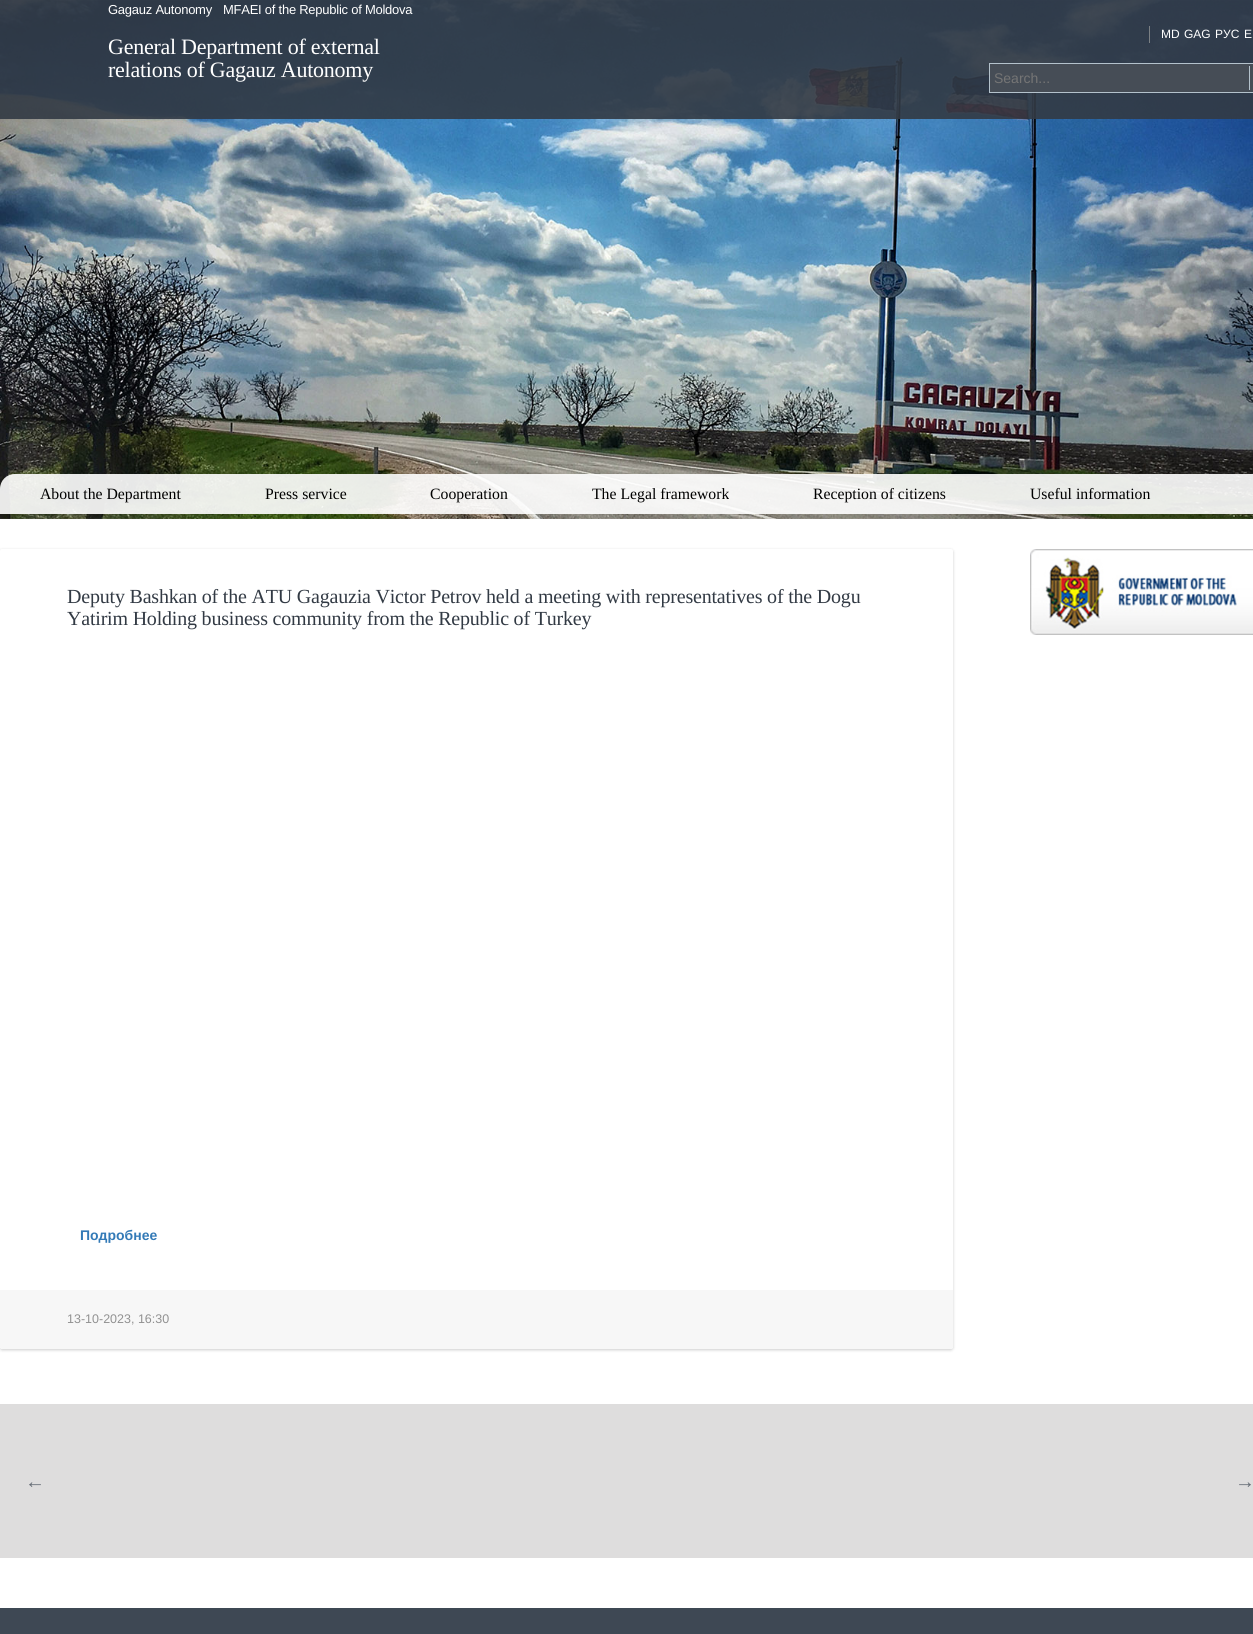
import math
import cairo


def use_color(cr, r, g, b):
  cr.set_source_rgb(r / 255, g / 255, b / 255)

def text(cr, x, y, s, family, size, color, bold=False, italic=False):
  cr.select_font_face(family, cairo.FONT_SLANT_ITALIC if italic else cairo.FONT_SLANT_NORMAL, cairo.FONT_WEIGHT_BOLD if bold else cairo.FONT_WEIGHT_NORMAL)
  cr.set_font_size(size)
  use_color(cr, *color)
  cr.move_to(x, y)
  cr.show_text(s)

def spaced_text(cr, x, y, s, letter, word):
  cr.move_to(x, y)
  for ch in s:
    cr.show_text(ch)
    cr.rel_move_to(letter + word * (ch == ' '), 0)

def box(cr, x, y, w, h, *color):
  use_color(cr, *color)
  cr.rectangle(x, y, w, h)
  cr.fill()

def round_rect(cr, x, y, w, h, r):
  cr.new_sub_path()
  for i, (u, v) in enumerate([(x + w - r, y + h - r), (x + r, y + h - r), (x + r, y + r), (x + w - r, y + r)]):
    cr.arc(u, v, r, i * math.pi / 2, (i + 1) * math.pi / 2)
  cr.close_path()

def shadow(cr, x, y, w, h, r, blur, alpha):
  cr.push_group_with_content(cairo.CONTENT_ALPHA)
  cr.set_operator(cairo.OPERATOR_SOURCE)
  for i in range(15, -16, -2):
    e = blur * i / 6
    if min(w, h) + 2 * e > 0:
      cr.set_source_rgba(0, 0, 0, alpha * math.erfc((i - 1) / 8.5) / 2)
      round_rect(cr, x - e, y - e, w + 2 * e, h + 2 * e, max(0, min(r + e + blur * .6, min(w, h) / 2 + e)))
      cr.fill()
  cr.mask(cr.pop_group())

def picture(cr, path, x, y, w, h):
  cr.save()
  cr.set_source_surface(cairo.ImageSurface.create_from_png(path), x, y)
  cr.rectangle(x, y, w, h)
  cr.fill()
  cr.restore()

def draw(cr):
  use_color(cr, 255, 255, 255)
  cr.paint()
  picture(cr, "img_01.png", 0, 0, 1253, 519)
  cr.set_source_rgba(0.196, 0.227, 0.267, 0.9)
  cr.rectangle(0, 0, 1253, 119)
  cr.fill()
  box(cr, 1149, 26, 1, 17, 123, 128, 132)
  use_color(cr, 70, 77, 86)
  cr.rectangle(989.5, 63.5, 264, 29)
  cr.fill_preserve()
  use_color(cr, 180, 194, 204)
  cr.set_line_width(1)
  cr.stroke()
  box(cr, 1249, 66, 1, 24, 180, 194, 204)
  cr.set_source_rgba(1, 1, 1, 0.9)
  cr.new_path()
  cr.move_to(15, 474)
  cr.line_to(1253, 474)
  cr.curve_to(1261.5, 474, 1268, 480.5, 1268, 489)
  cr.line_to(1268, 514)
  cr.line_to(0, 514)
  cr.line_to(0, 489)
  cr.curve_to(0, 480.5, 6.5, 474, 15, 474)
  cr.close_path()
  cr.fill()
  use_color(cr, 0, 0, 0)
  shadow(cr, 0, 550, 953, 800, 2, 1.5, 0.2)
  use_color(cr, 255, 255, 255)
  round_rect(cr, 0, 549, 953, 800, 2)
  cr.fill()
  use_color(cr, 247, 247, 247)
  cr.new_path()
  cr.move_to(0, 1290)
  cr.line_to(953, 1290)
  cr.line_to(953, 1347)
  cr.curve_to(953, 1348, 952, 1349, 951, 1349)
  cr.line_to(2, 1349)
  cr.curve_to(1, 1349, 0, 1348, 0, 1347)
  cr.close_path()
  cr.fill()
  picture(cr, "img_02.png", 1030, 549, 223, 86)
  box(cr, 0, 1404, 1253, 154, 222, 221, 221)
  box(cr, 0, 1608, 1253, 26, 62, 72, 84)
  cr.select_font_face("Liberation Sans")
  cr.set_font_size(13)
  use_color(cr, 255, 255, 255)
  spaced_text(cr, 108, 14, "Gagauz Autonomy", -0.25, 0)
  spaced_text(cr, 223, 14, "MFAEI of the Republic of Moldova", -0.25, 0)
  cr.select_font_face("Liberation Serif")
  cr.set_font_size(22)
  spaced_text(cr, 108, 54, "General Department of external", -0.25, 0)
  spaced_text(cr, 108, 77, "relations of Gagauz Autonomy", -0.25, 0)
  text(cr, 1161, 38, "MD", "Liberation Sans", 12, (255, 255, 255))
  text(cr, 1184, 38, "GAG", "Liberation Sans", 12, (255, 255, 255))
  text(cr, 1215, 38, "РУС", "Liberation Sans", 12, (255, 255, 255))
  text(cr, 1244, 38, "E", "Liberation Sans", 12, (255, 255, 255))
  text(cr, 994, 83, "Search...", "Liberation Sans", 14, (117, 117, 117))
  text(cr, 40, 499, "About the Department", "Liberation Serif", 15.75, (0, 0, 0))
  text(cr, 265, 499, "Press service", "Liberation Serif", 15.75, (0, 0, 0))
  text(cr, 430, 499, "Cooperation", "Liberation Serif", 15.75, (0, 0, 0))
  text(cr, 592, 499, "The Legal framework", "Liberation Serif", 15.75, (0, 0, 0))
  text(cr, 813, 499, "Reception of citizens", "Liberation Serif", 15.75, (0, 0, 0))
  text(cr, 1030, 499, "Useful information", "Liberation Serif", 15.75, (0, 0, 0))
  cr.set_font_size(20)
  use_color(cr, 50, 58, 68)
  spaced_text(cr, 67, 603, "Deputy Bashkan of the ATU Gagauzia Victor Petrov held a meeting with representatives of the Dogu", -0.2, 0)
  spaced_text(cr, 67, 625, "Yatirim Holding business community from the Republic of Turkey", -0.2, 0)
  text(cr, 80, 1240, "Подробнее", "Liberation Sans", 14, (51, 122, 183), bold=True)
  text(cr, 67, 1323, "13-10-2023, 16:30", "Liberation Sans", 12.5, (145, 145, 145))
  text(cr, 25, 1488, "←", "Liberation Serif", 20, (102, 109, 118))
  text(cr, 1235, 1488, "→", "Liberation Serif", 20, (102, 109, 118))


surface = cairo.ImageSurface(cairo.FORMAT_RGB24, 1253, 1634)
cr = cairo.Context(surface)
options = cairo.FontOptions()
options.set_hint_metrics(cairo.HINT_METRICS_OFF)
options.set_hint_style(cairo.HINT_STYLE_NONE)
cr.set_font_options(options)
cr.set_miter_limit(4)
draw(cr)
surface.write_to_png("out.png")
